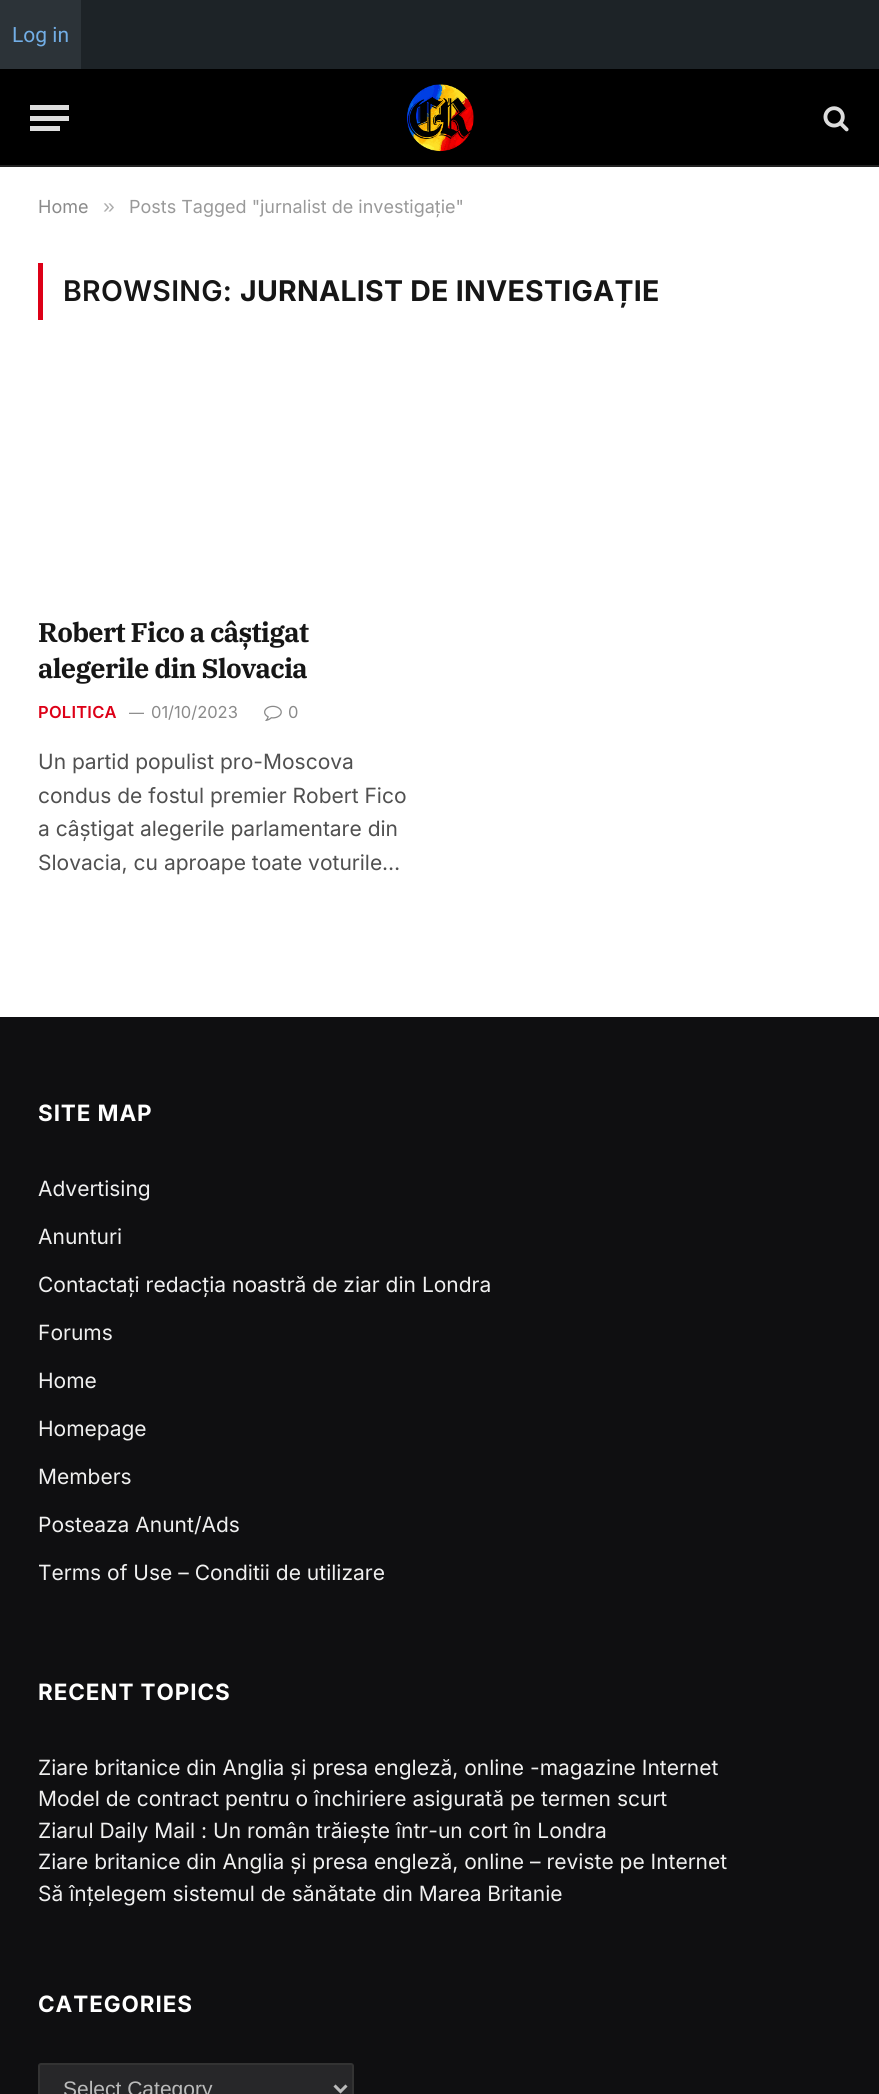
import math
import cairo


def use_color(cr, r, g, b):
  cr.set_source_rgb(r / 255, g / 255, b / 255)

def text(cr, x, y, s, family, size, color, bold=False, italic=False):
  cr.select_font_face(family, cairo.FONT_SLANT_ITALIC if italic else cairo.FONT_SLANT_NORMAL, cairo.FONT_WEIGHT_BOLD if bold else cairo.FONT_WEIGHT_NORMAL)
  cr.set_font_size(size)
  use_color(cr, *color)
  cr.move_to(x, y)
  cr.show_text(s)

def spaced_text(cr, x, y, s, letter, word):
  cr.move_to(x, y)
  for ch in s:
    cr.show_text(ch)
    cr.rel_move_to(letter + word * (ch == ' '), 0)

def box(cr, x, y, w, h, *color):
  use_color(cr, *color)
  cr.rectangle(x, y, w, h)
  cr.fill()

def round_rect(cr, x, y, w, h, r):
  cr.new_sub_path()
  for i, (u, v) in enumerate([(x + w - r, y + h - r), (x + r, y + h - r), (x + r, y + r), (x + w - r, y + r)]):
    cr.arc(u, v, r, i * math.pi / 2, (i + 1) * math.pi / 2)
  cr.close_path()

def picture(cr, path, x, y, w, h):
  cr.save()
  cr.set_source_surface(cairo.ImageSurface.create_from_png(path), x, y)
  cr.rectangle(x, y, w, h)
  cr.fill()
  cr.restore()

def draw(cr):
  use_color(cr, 255, 255, 255)
  cr.paint()
  box(cr, 81, 0, 798, 69, 29, 35, 39)
  box(cr, 0, 0, 81, 69, 44, 51, 56)
  box(cr, 0, 69, 879, 96, 0, 0, 0)
  box(cr, 0, 165, 879, 2, 34, 34, 34)
  box(cr, 30, 126, 30, 5, 221, 221, 221)
  box(cr, 30, 105, 39, 5, 221, 221, 221)
  box(cr, 30, 116, 39, 5, 221, 221, 221)
  picture(cr, "img_01.png", 406, 84, 68, 68)
  picture(cr, "img_02.png", 823, 106, 26, 26)
  box(cr, 38, 263, 5, 57, 221, 0, 23)
  picture(cr, "img_03.png", 264, 705, 18, 16)
  box(cr, 0, 1017, 879, 1077, 15, 15, 17)
  use_color(cr, 39, 39, 41)
  round_rect(cr, 39, 2064, 314, 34, 2)
  cr.fill_preserve()
  use_color(cr, 51, 51, 51)
  cr.stroke()
  cr.new_path()
  cr.move_to(334.5, 2085.5)
  cr.line_to(340.5, 2091.5)
  cr.line_to(346.5, 2085.5)
  use_color(cr, 187, 187, 187)
  cr.set_line_width(3)
  cr.stroke()
  text(cr, 12, 42, "Log in", "Roboto", 21, (114, 174, 230))
  text(cr, 38, 213, "Home", "Inter", 18, (138, 138, 138))
  text(cr, 103, 213, "»", "Liberation Sans", 21, (173, 173, 173))
  text(cr, 129, 213, "Posts Tagged \"jurnalist de investigație\"", "Inter", 18, (153, 153, 153))
  cr.select_font_face("Inter SemiBold")
  cr.set_font_size(28.5)
  use_color(cr, 22, 22, 22)
  spaced_text(cr, 63, 301, "BROWSING:", 0.25, 0)
  cr.select_font_face("Inter", cairo.FONT_SLANT_NORMAL, cairo.FONT_WEIGHT_BOLD)
  spaced_text(cr, 240, 301, "JURNALIST DE INVESTIGAȚIE", 0.25, 0)
  cr.select_font_face("IBM Plex Serif", cairo.FONT_SLANT_NORMAL, cairo.FONT_WEIGHT_BOLD)
  cr.set_font_size(27)
  spaced_text(cr, 38, 642, "Robert Fico a câștigat", -0.7, 0)
  spaced_text(cr, 38, 678, "alegerile din Slovacia", -0.7, 0)
  cr.select_font_face("Inter SemiBold")
  cr.set_font_size(16.5)
  use_color(cr, 221, 0, 23)
  spaced_text(cr, 38, 718, "POLITICA", 0.25, 0)
  text(cr, 129, 718, "—", "Inter", 15, (138, 138, 138))
  text(cr, 151, 718, "01/10/2023", "Inter", 16.5, (138, 138, 138))
  text(cr, 288, 718, "0", "Inter", 16.5, (138, 138, 138))
  text(cr, 38, 769, "Un partid populist pro-Moscova", "Inter", 21, (80, 80, 80))
  text(cr, 38, 803, "condus de fostul premier Robert Fico", "Inter", 21, (80, 80, 80))
  text(cr, 38, 836, "a câștigat alegerile parlamentare din", "Inter", 21, (80, 80, 80))
  text(cr, 38, 870, "Slovacia, cu aproape toate voturile…", "Inter", 21, (80, 80, 80))
  cr.select_font_face("Inter", cairo.FONT_SLANT_NORMAL, cairo.FONT_WEIGHT_BOLD)
  cr.set_font_size(22.5)
  use_color(cr, 255, 255, 255)
  spaced_text(cr, 38, 1121, "SITE MAP", 0.9, 0)
  text(cr, 38, 1196, "Advertising", "Inter", 21, (240, 240, 240))
  text(cr, 38, 1244, "Anunturi", "Inter", 21, (240, 240, 240))
  text(cr, 38, 1292, "Contactați redacția noastră de ziar din Londra", "Inter", 21, (240, 240, 240))
  text(cr, 38, 1340, "Forums", "Inter", 21, (240, 240, 240))
  text(cr, 38, 1388, "Home", "Inter", 21, (240, 240, 240))
  text(cr, 38, 1436, "Homepage", "Inter", 21, (240, 240, 240))
  text(cr, 38, 1484, "Members", "Inter", 21, (240, 240, 240))
  text(cr, 38, 1532, "Posteaza Anunt/Ads", "Inter", 21, (240, 240, 240))
  text(cr, 38, 1580, "Terms of Use – Conditii de utilizare", "Inter", 21, (240, 240, 240))
  cr.select_font_face("Inter", cairo.FONT_SLANT_NORMAL, cairo.FONT_WEIGHT_BOLD)
  cr.set_font_size(22.5)
  use_color(cr, 255, 255, 255)
  spaced_text(cr, 38, 1700, "RECENT TOPICS", 0.9, 0)
  text(cr, 38, 1775, "Ziare britanice din Anglia și presa engleză, online -magazine Internet", "Inter", 21, (240, 240, 240))
  text(cr, 38, 1806, "Model de contract pentru o închiriere asigurată pe termen scurt", "Inter", 21, (240, 240, 240))
  text(cr, 38, 1838, "Ziarul Daily Mail : Un român trăiește într-un cort în Londra", "Inter", 21, (240, 240, 240))
  text(cr, 38, 1869, "Ziare britanice din Anglia și presa engleză, online – reviste pe Internet", "Inter", 21, (240, 240, 240))
  text(cr, 38, 1901, "Să înțelegem sistemul de sănătate din Marea Britanie", "Inter", 21, (240, 240, 240))
  cr.select_font_face("Inter", cairo.FONT_SLANT_NORMAL, cairo.FONT_WEIGHT_BOLD)
  cr.set_font_size(22.5)
  use_color(cr, 255, 255, 255)
  spaced_text(cr, 38, 2012, "CATEGORIES", 0.9, 0)
  text(cr, 63, 2096, "Select Category", "Liberation Sans", 21, (187, 187, 187))


surface = cairo.ImageSurface(cairo.FORMAT_RGB24, 879, 2094)
cr = cairo.Context(surface)
options = cairo.FontOptions()
options.set_hint_metrics(cairo.HINT_METRICS_OFF)
options.set_hint_style(cairo.HINT_STYLE_NONE)
cr.set_font_options(options)
cr.set_miter_limit(4)
draw(cr)
surface.write_to_png("out.png")
